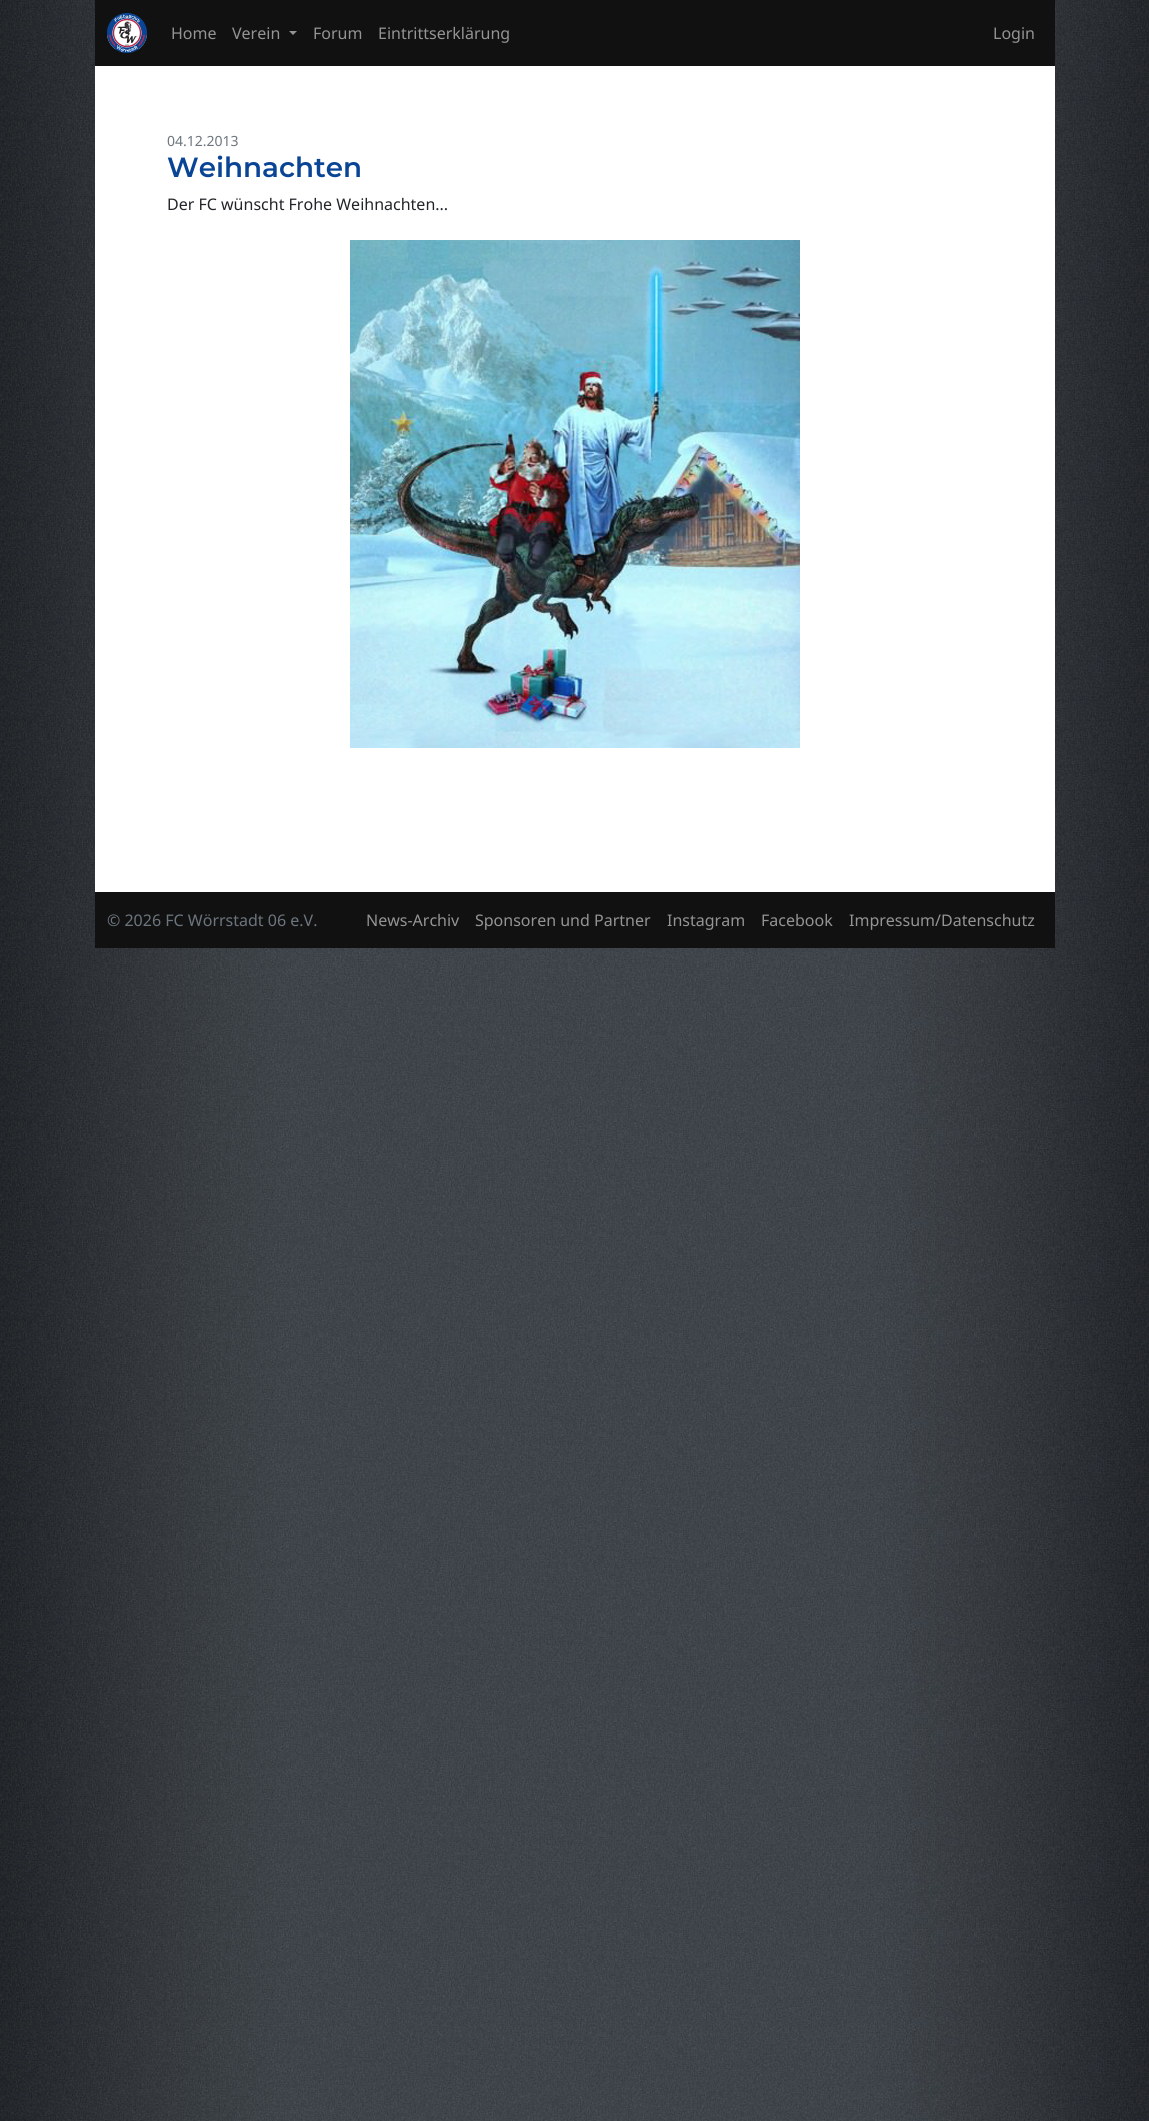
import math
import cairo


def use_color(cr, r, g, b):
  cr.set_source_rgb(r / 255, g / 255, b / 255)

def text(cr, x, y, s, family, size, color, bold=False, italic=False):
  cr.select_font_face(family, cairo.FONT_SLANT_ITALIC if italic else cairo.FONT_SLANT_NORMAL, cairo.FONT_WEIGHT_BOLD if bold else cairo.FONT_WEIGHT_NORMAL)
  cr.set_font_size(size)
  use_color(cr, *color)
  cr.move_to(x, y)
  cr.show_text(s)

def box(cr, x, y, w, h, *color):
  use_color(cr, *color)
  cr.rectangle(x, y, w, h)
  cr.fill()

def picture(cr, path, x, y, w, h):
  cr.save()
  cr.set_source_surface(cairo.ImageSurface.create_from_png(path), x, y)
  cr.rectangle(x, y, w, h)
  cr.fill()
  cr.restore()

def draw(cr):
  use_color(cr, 255, 255, 255)
  cr.paint()
  picture(cr, "img_01.png", 0, 0, 1149, 2121)
  box(cr, 95, 0, 960, 66, 17, 17, 17)
  picture(cr, "img_02.png", 107, 13, 40, 40)
  use_color(cr, 148, 148, 148)
  cr.new_path()
  cr.move_to(289, 31)
  cr.line_to(297, 31)
  cr.line_to(293, 35)
  cr.close_path()
  cr.fill()
  box(cr, 95, 66, 960, 826, 255, 255, 255)
  picture(cr, "img_03.png", 350, 240, 450, 508)
  box(cr, 95, 892, 960, 56, 17, 17, 17)
  text(cr, 171, 39, "Home", "Noto Sans", 16, (148, 148, 148))
  text(cr, 232, 39, "Verein", "Noto Sans", 16, (148, 148, 148))
  text(cr, 313, 39, "Forum", "Noto Sans", 16, (148, 148, 148))
  text(cr, 378, 39, "Eintrittserklärung", "Noto Sans", 16, (148, 148, 148))
  text(cr, 993, 39, "Login", "Noto Sans", 16, (148, 148, 148))
  text(cr, 167, 146, "04.12.2013", "Noto Sans", 14, (108, 117, 125))
  text(cr, 167, 177, "Weihnachten", "Montserrat SemiBold", 27.75, (10, 69, 149))
  text(cr, 167, 210, "Der FC wünscht Frohe Weihnachten...", "Noto Sans", 16, (33, 37, 41))
  text(cr, 107, 926, "© 2026 FC Wörrstadt 06 e.V.", "Noto Sans", 16, (108, 117, 125))
  text(cr, 366, 926, "News-Archiv", "Noto Sans", 16, (148, 148, 148))
  text(cr, 475, 926, "Sponsoren und Partner", "Noto Sans", 16, (148, 148, 148))
  text(cr, 667, 926, "Instagram", "Noto Sans", 16, (148, 148, 148))
  text(cr, 761, 926, "Facebook", "Noto Sans", 16, (148, 148, 148))
  text(cr, 849, 926, "Impressum/Datenschutz", "Noto Sans", 16, (148, 148, 148))


surface = cairo.ImageSurface(cairo.FORMAT_RGB24, 1149, 2121)
cr = cairo.Context(surface)
options = cairo.FontOptions()
options.set_hint_metrics(cairo.HINT_METRICS_OFF)
options.set_hint_style(cairo.HINT_STYLE_NONE)
cr.set_font_options(options)
cr.set_miter_limit(4)
draw(cr)
surface.write_to_png("out.png")
